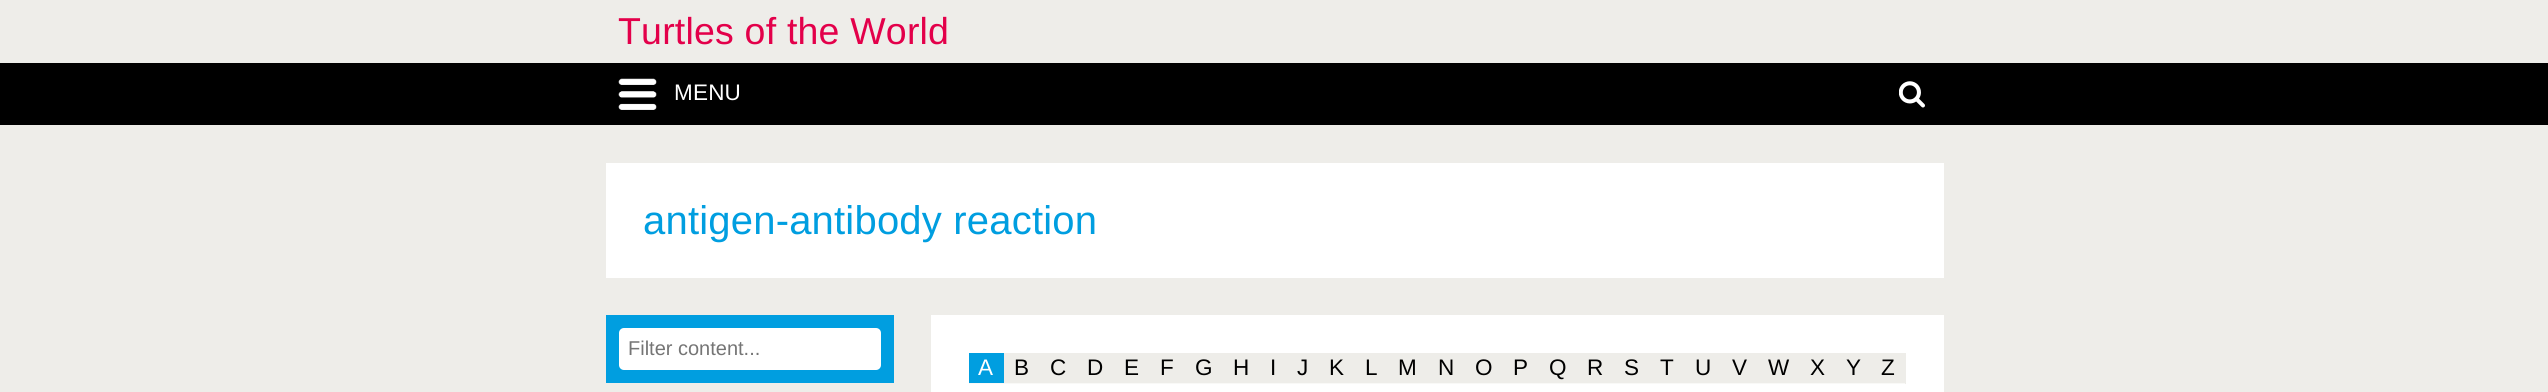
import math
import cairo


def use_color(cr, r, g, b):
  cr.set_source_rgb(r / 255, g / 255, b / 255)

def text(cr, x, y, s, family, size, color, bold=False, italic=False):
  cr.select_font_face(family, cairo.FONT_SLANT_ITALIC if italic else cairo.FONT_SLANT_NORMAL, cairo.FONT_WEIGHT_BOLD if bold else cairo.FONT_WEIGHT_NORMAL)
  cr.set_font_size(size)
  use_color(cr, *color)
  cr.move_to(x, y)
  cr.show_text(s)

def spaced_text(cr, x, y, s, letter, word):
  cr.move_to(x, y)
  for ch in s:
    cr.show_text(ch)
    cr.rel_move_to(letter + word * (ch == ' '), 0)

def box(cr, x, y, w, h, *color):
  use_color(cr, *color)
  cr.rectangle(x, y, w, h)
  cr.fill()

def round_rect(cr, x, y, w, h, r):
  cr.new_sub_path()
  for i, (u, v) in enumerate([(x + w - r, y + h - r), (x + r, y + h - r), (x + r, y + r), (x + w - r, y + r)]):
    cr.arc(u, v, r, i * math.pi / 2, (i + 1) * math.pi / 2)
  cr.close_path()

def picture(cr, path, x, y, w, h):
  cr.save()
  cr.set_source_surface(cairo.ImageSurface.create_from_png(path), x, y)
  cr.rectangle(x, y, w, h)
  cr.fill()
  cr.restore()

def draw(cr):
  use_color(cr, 238, 237, 233)
  cr.paint()
  box(cr, 0, 63, 2548, 62, 0, 0, 0)
  picture(cr, "img_01.png", 618, 78, 39, 32)
  picture(cr, "img_02.png", 1899, 81, 26, 27)
  box(cr, 606, 163, 1338, 115, 255, 255, 255)
  box(cr, 606, 315, 288, 68, 0, 158, 224)
  use_color(cr, 255, 255, 255)
  round_rect(cr, 619, 328, 262, 42, 5)
  cr.fill()
  box(cr, 931, 315, 1013, 77, 255, 255, 255)
  box(cr, 1004, 353, 902, 31, 238, 237, 233)
  box(cr, 969, 353, 35, 30, 0, 158, 224)
  box(cr, 969, 383, 936, 1, 249, 249, 247)
  cr.select_font_face("Liberation Sans")
  cr.set_font_size(37.5)
  use_color(cr, 227, 0, 74)
  spaced_text(cr, 618, 44, "Turtles of the World", 0.2, 0)
  cr.set_font_size(22.5)
  use_color(cr, 255, 255, 255)
  spaced_text(cr, 674, 100, "MENU", 0.2, 0)
  cr.set_font_size(40)
  use_color(cr, 0, 158, 224)
  spaced_text(cr, 643, 234, "antigen-antibody reaction", 0.2, 0)
  text(cr, 628, 355, "Filter content...", "Liberation Sans", 20, (117, 117, 117))
  cr.set_font_size(22.5)
  use_color(cr, 255, 255, 255)
  spaced_text(cr, 978, 375, "A", 0.2, 0)
  use_color(cr, 0, 0, 0)
  spaced_text(cr, 1014, 375, "B", 0.2, 0)
  spaced_text(cr, 1050, 375, "C", 0.2, 0)
  spaced_text(cr, 1087, 375, "D", 0.2, 0)
  spaced_text(cr, 1124, 375, "E", 0.2, 0)
  spaced_text(cr, 1160, 375, "F", 0.2, 0)
  spaced_text(cr, 1195, 375, "G", 0.2, 0)
  spaced_text(cr, 1233, 375, "H", 0.2, 0)
  spaced_text(cr, 1270, 375, "I", 0.2, 0)
  spaced_text(cr, 1297, 375, "J", 0.2, 0)
  spaced_text(cr, 1329, 375, "K", 0.2, 0)
  spaced_text(cr, 1365, 375, "L", 0.2, 0)
  spaced_text(cr, 1398, 375, "M", 0.2, 0)
  spaced_text(cr, 1438, 375, "N", 0.2, 0)
  spaced_text(cr, 1475, 375, "O", 0.2, 0)
  spaced_text(cr, 1513, 375, "P", 0.2, 0)
  spaced_text(cr, 1549, 375, "Q", 0.2, 0)
  spaced_text(cr, 1587, 375, "R", 0.2, 0)
  spaced_text(cr, 1624, 375, "S", 0.2, 0)
  spaced_text(cr, 1660, 375, "T", 0.2, 0)
  spaced_text(cr, 1695, 375, "U", 0.2, 0)
  spaced_text(cr, 1732, 375, "V", 0.2, 0)
  spaced_text(cr, 1768, 375, "W", 0.2, 0)
  spaced_text(cr, 1810, 375, "X", 0.2, 0)
  spaced_text(cr, 1846, 375, "Y", 0.2, 0)
  spaced_text(cr, 1881, 375, "Z", 0.2, 0)


surface = cairo.ImageSurface(cairo.FORMAT_RGB24, 2548, 392)
cr = cairo.Context(surface)
options = cairo.FontOptions()
options.set_hint_metrics(cairo.HINT_METRICS_OFF)
options.set_hint_style(cairo.HINT_STYLE_NONE)
cr.set_font_options(options)
cr.set_miter_limit(4)
draw(cr)
surface.write_to_png("out.png")
